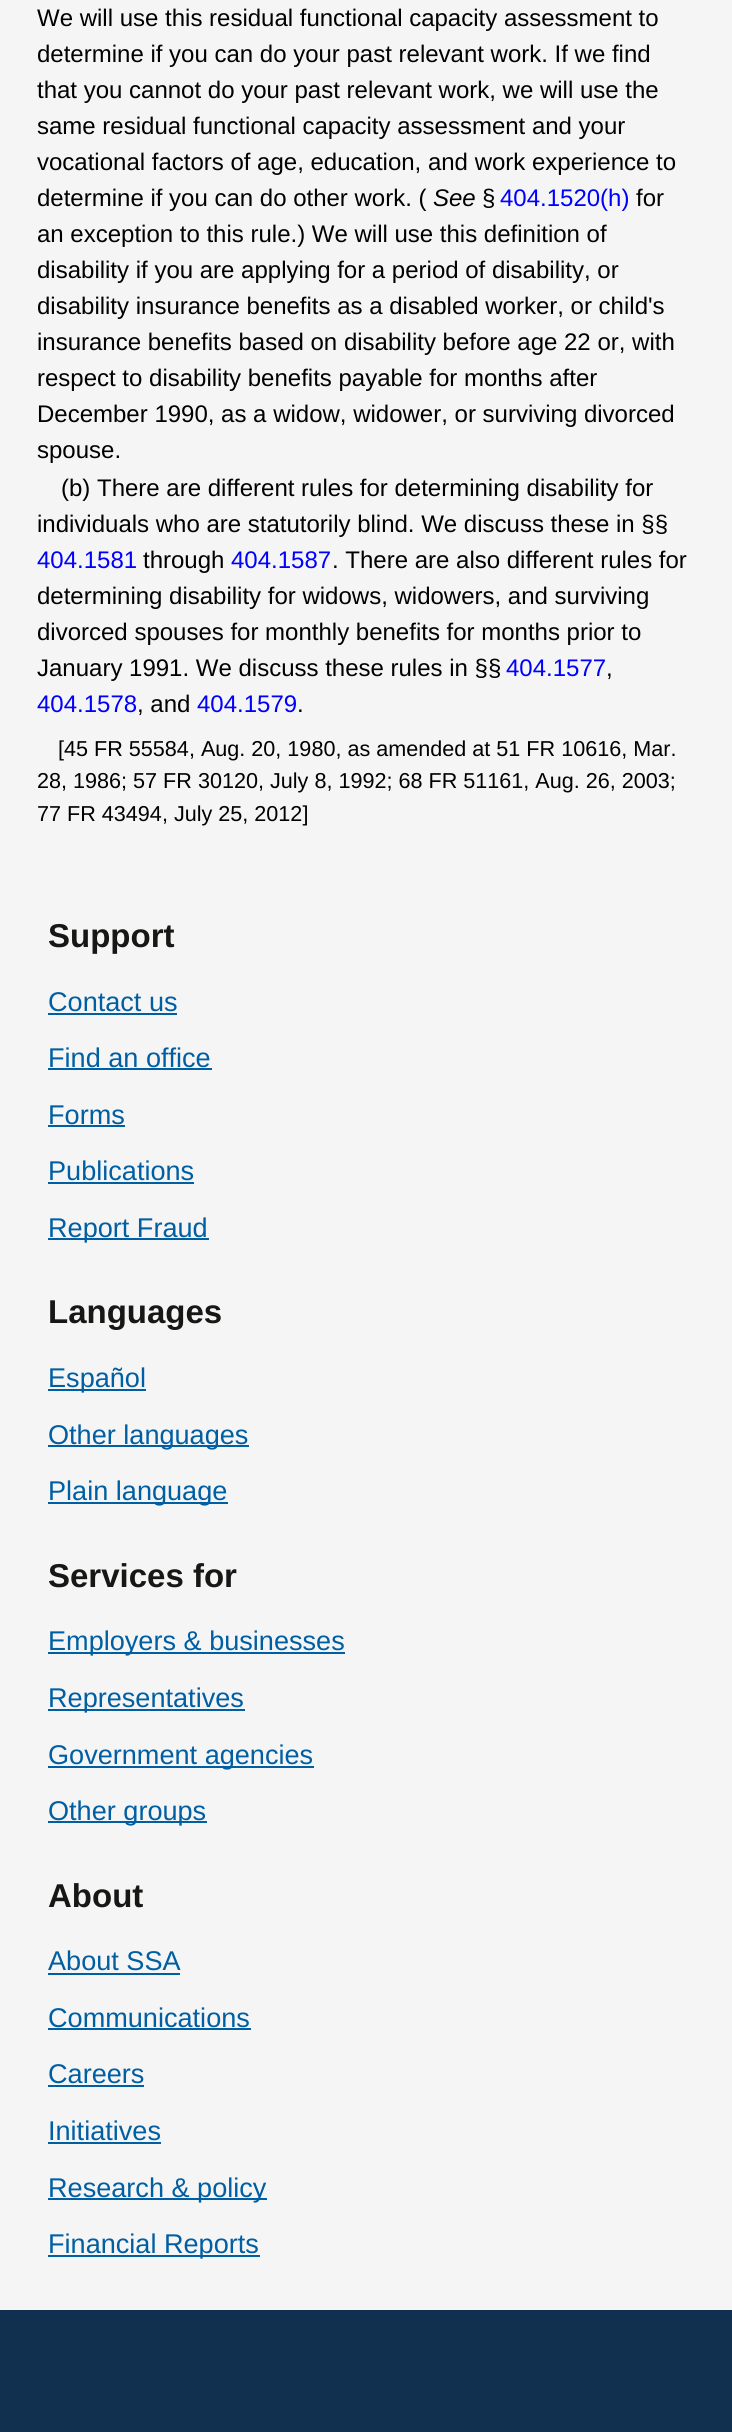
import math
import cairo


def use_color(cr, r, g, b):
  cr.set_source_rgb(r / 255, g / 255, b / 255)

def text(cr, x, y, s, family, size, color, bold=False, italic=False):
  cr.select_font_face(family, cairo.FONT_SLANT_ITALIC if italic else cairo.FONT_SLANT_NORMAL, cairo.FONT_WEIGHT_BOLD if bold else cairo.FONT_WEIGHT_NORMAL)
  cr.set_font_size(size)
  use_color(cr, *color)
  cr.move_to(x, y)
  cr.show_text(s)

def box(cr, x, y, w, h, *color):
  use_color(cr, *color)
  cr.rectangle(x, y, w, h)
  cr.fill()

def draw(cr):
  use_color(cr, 245, 245, 245)
  cr.paint()
  box(cr, 48, 1013, 129, 2, 0, 94, 162)
  box(cr, 48, 1068, 164, 2, 0, 94, 162)
  box(cr, 48, 1125, 77, 2, 0, 94, 162)
  box(cr, 48, 1182, 146, 2, 0, 94, 162)
  box(cr, 48, 1238, 161, 2, 0, 94, 162)
  box(cr, 48, 1389, 98, 2, 0, 94, 162)
  box(cr, 48, 1445, 201, 2, 0, 94, 162)
  box(cr, 48, 1502, 180, 2, 0, 94, 162)
  box(cr, 48, 1652, 297, 2, 0, 94, 162)
  box(cr, 48, 1709, 197, 2, 0, 94, 162)
  box(cr, 48, 1766, 266, 2, 0, 94, 162)
  box(cr, 48, 1821, 159, 2, 0, 94, 162)
  box(cr, 48, 1973, 132, 2, 0, 94, 162)
  box(cr, 48, 2028, 203, 2, 0, 94, 162)
  box(cr, 48, 2085, 96, 2, 0, 94, 162)
  box(cr, 48, 2142, 113, 2, 0, 94, 162)
  box(cr, 48, 2198, 219, 2, 0, 94, 162)
  box(cr, 48, 2255, 212, 2, 0, 94, 162)
  box(cr, 0, 2310, 732, 122, 17, 47, 78)
  text(cr, 37, 26, "We will use this residual functional capacity assessment to", "Liberation Sans", 24, (0, 0, 0))
  text(cr, 37, 62, "determine if you can do your past relevant work. If we find", "Liberation Sans", 24, (0, 0, 0))
  text(cr, 37, 98, "that you cannot do your past relevant work, we will use the", "Liberation Sans", 24, (0, 0, 0))
  text(cr, 37, 134, "same residual functional capacity assessment and your", "Liberation Sans", 24, (0, 0, 0))
  text(cr, 37, 170, "vocational factors of age, education, and work experience to", "Liberation Sans", 24, (0, 0, 0))
  text(cr, 37, 206, "determine if you can do other work. (", "Liberation Sans", 24, (0, 0, 0))
  text(cr, 433, 206, "See", "Liberation Sans", 24, (0, 0, 0), italic=True)
  text(cr, 482, 206, "§", "Liberation Sans", 24, (0, 0, 0))
  text(cr, 500, 206, "404.1520(h)", "Liberation Sans", 24, (0, 0, 255))
  text(cr, 636, 206, "for", "Liberation Sans", 24, (0, 0, 0))
  text(cr, 37, 242, "an exception to this rule.) We will use this definition of", "Liberation Sans", 24, (0, 0, 0))
  text(cr, 37, 278, "disability if you are applying for a period of disability, or", "Liberation Sans", 24, (0, 0, 0))
  text(cr, 37, 314, "disability insurance benefits as a disabled worker, or child's", "Liberation Sans", 24, (0, 0, 0))
  text(cr, 37, 350, "insurance benefits based on disability before age 22 or, with", "Liberation Sans", 24, (0, 0, 0))
  text(cr, 37, 386, "respect to disability benefits payable for months after", "Liberation Sans", 24, (0, 0, 0))
  text(cr, 37, 422, "December 1990, as a widow, widower, or surviving divorced", "Liberation Sans", 24, (0, 0, 0))
  text(cr, 37, 458, "spouse.", "Liberation Sans", 24, (0, 0, 0))
  text(cr, 61, 496, "(b) There are different rules for determining disability for", "Liberation Sans", 24, (0, 0, 0))
  text(cr, 37, 532, "individuals who are statutorily blind. We discuss these in §§", "Liberation Sans", 24, (0, 0, 0))
  text(cr, 37, 568, "404.1581", "Liberation Sans", 24, (0, 0, 255))
  text(cr, 143, 568, "through", "Liberation Sans", 24, (0, 0, 0))
  text(cr, 231, 568, "404.1587", "Liberation Sans", 24, (0, 0, 255))
  text(cr, 332, 568, ". There are also different rules for", "Liberation Sans", 24, (0, 0, 0))
  text(cr, 37, 604, "determining disability for widows, widowers, and surviving", "Liberation Sans", 24, (0, 0, 0))
  text(cr, 37, 640, "divorced spouses for monthly benefits for months prior to", "Liberation Sans", 24, (0, 0, 0))
  text(cr, 37, 676, "January 1991. We discuss these rules in §§", "Liberation Sans", 24, (0, 0, 0))
  text(cr, 506, 676, "404.1577", "Liberation Sans", 24, (0, 0, 255))
  text(cr, 606, 676, ",", "Liberation Sans", 24, (0, 0, 0))
  text(cr, 37, 712, "404.1578", "Liberation Sans", 24, (0, 0, 255))
  text(cr, 137, 712, ", and", "Liberation Sans", 24, (0, 0, 0))
  text(cr, 197, 712, "404.1579", "Liberation Sans", 24, (0, 0, 255))
  text(cr, 297, 712, ".", "Liberation Sans", 24, (0, 0, 0))
  text(cr, 58, 756, "[45 FR 55584, Aug. 20, 1980, as amended at 51 FR 10616, Mar.", "Liberation Sans", 21.6, (0, 0, 0))
  text(cr, 37, 788, "28, 1986; 57 FR 30120, July 8, 1992; 68 FR 51161, Aug. 26, 2003;", "Liberation Sans", 21.6, (0, 0, 0))
  text(cr, 37, 821, "77 FR 43494, July 25, 2012]", "Liberation Sans", 21.6, (0, 0, 0))
  text(cr, 48, 947, "Support", "Liberation Sans", 33, (23, 23, 22), bold=True)
  text(cr, 48, 1011, "Contact us", "Liberation Sans", 27.1, (0, 94, 162))
  text(cr, 48, 1067, "Find an office", "Liberation Sans", 27.1, (0, 94, 162))
  text(cr, 48, 1124, "Forms", "Liberation Sans", 27.1, (0, 94, 162))
  text(cr, 48, 1180, "Publications", "Liberation Sans", 27.1, (0, 94, 162))
  text(cr, 48, 1237, "Report Fraud", "Liberation Sans", 27.1, (0, 94, 162))
  text(cr, 48, 1323, "Languages", "Liberation Sans", 33, (23, 23, 22), bold=True)
  text(cr, 48, 1387, "Español", "Liberation Sans", 27.1, (0, 94, 162))
  text(cr, 48, 1444, "Other languages", "Liberation Sans", 27.1, (0, 94, 162))
  text(cr, 48, 1500, "Plain language", "Liberation Sans", 27.1, (0, 94, 162))
  text(cr, 48, 1587, "Services for", "Liberation Sans", 33, (23, 23, 22), bold=True)
  text(cr, 48, 1650, "Employers & businesses", "Liberation Sans", 27.1, (0, 94, 162))
  text(cr, 48, 1707, "Representatives", "Liberation Sans", 27.1, (0, 94, 162))
  text(cr, 48, 1764, "Government agencies", "Liberation Sans", 27.1, (0, 94, 162))
  text(cr, 48, 1820, "Other groups", "Liberation Sans", 27.1, (0, 94, 162))
  text(cr, 48, 1907, "About", "Liberation Sans", 33, (23, 23, 22), bold=True)
  text(cr, 48, 1970, "About SSA", "Liberation Sans", 27.1, (0, 94, 162))
  text(cr, 48, 2027, "Communications", "Liberation Sans", 27.1, (0, 94, 162))
  text(cr, 48, 2083, "Careers", "Liberation Sans", 27.1, (0, 94, 162))
  text(cr, 48, 2140, "Initiatives", "Liberation Sans", 27.1, (0, 94, 162))
  text(cr, 48, 2197, "Research & policy", "Liberation Sans", 27.1, (0, 94, 162))
  text(cr, 48, 2253, "Financial Reports", "Liberation Sans", 27.1, (0, 94, 162))


surface = cairo.ImageSurface(cairo.FORMAT_RGB24, 732, 2432)
cr = cairo.Context(surface)
options = cairo.FontOptions()
options.set_hint_metrics(cairo.HINT_METRICS_OFF)
options.set_hint_style(cairo.HINT_STYLE_NONE)
cr.set_font_options(options)
cr.set_miter_limit(4)
draw(cr)
surface.write_to_png("out.png")
